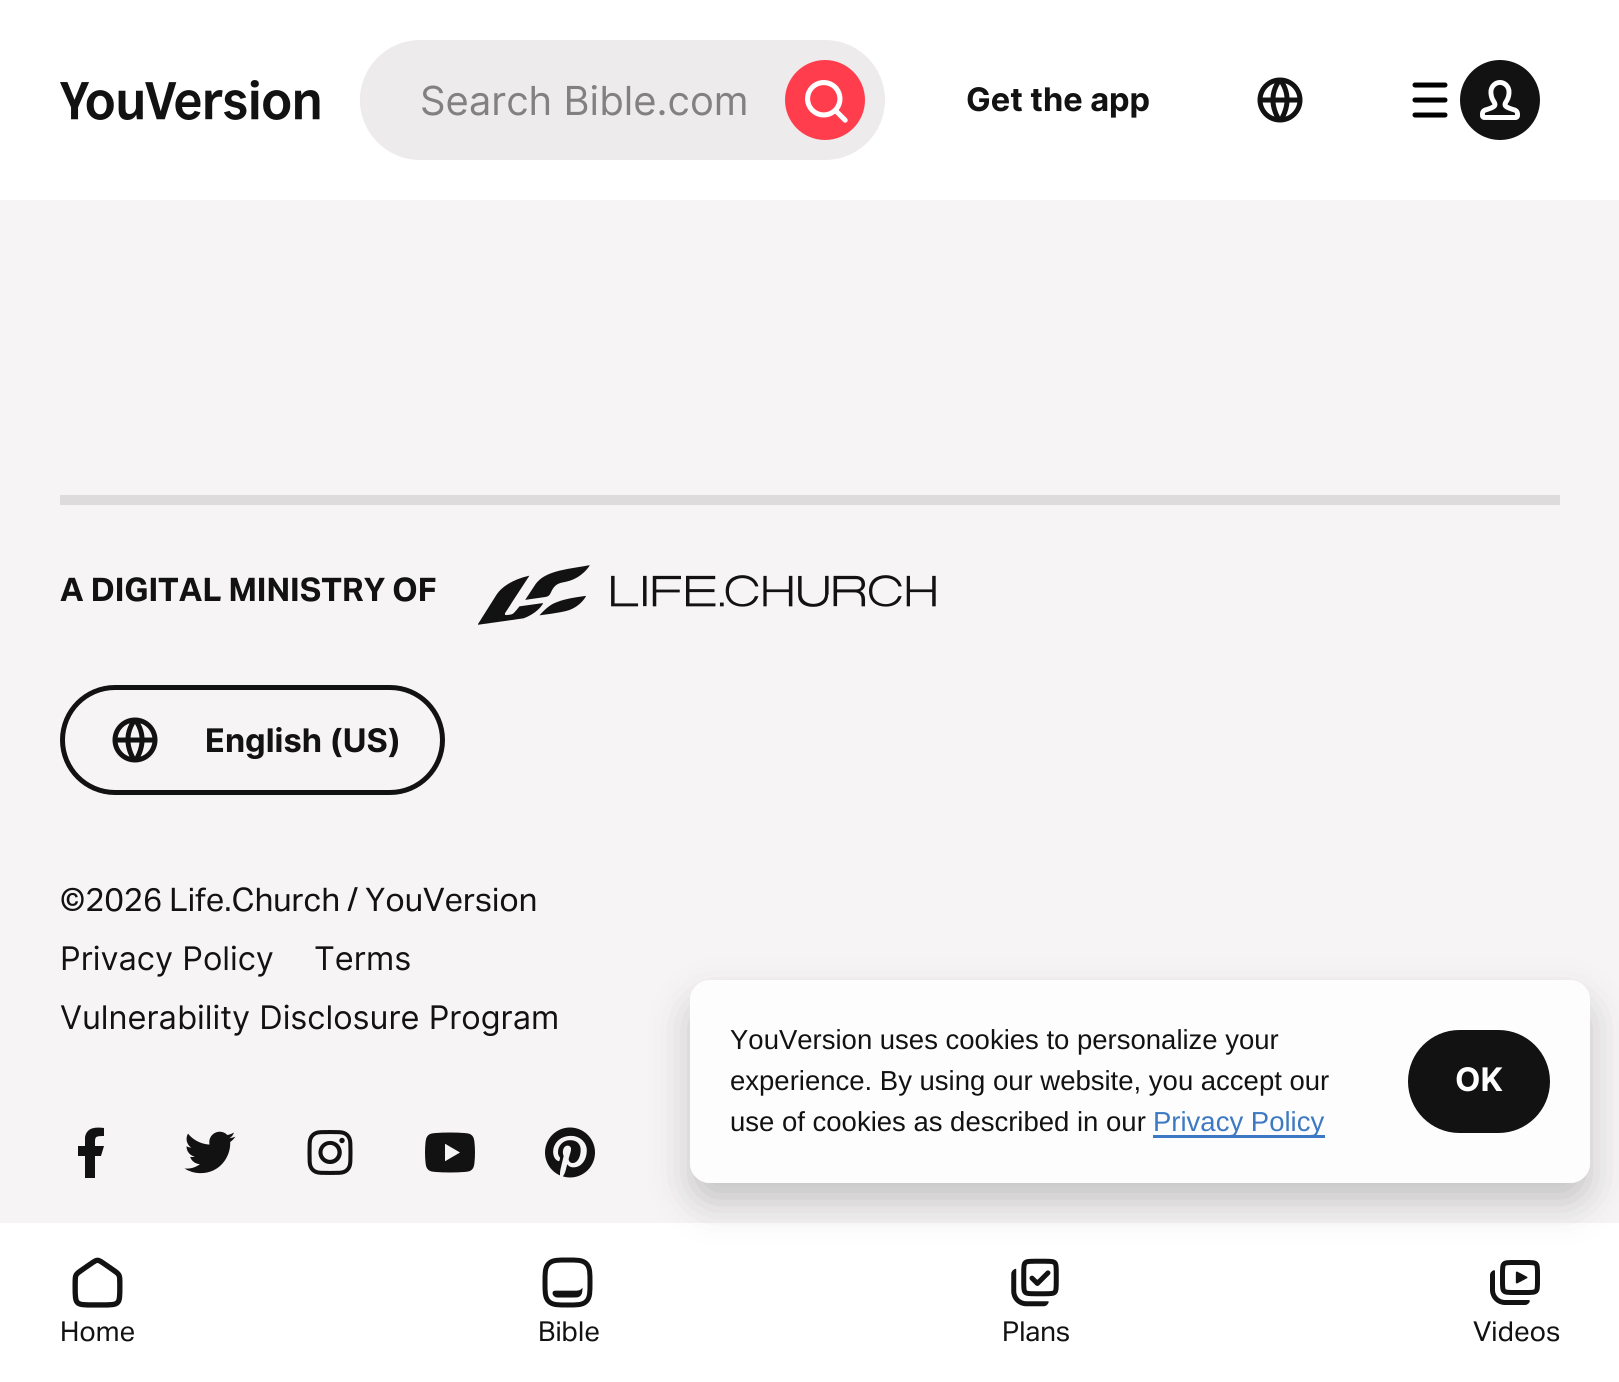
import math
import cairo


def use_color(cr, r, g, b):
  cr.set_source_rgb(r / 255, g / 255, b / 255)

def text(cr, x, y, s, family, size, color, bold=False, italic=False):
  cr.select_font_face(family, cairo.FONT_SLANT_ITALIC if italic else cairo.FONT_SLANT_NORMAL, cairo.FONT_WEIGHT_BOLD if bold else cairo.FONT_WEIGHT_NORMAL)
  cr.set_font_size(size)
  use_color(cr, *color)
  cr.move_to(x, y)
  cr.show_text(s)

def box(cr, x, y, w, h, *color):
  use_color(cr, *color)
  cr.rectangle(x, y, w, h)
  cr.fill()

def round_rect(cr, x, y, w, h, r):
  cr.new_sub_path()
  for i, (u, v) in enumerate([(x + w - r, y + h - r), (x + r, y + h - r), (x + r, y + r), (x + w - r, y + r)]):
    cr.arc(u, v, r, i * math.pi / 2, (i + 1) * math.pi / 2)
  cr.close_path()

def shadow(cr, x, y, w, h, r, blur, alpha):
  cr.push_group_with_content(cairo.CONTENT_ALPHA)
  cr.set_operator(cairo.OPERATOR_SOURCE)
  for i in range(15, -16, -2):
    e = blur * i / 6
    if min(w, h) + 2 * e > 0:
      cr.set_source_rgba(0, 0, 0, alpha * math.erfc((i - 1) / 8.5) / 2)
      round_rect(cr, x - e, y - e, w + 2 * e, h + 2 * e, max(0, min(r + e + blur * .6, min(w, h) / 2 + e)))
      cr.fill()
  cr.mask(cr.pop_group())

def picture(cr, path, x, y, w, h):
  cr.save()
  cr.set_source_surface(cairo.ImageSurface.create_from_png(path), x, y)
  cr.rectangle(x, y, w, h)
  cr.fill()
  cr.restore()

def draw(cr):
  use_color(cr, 246, 244, 244)
  cr.paint()
  box(cr, 0, 0, 1619, 200, 255, 255, 255)
  picture(cr, "img_01.png", 60, 80, 260, 40)
  use_color(cr, 237, 235, 235)
  round_rect(cr, 360, 40, 525, 120, 60)
  cr.fill()
  round_rect(cr, 360, 60, 405, 80, 40)
  cr.fill()
  use_color(cr, 255, 61, 77)
  cr.arc(825, 100, 40, 0, 2 * math.pi)
  cr.fill()
  picture(cr, "img_02.png", 805, 80, 43, 43)
  picture(cr, "img_03.png", 1257, 77, 46, 46)
  picture(cr, "img_04.png", 1412, 82, 36, 36)
  use_color(cr, 18, 18, 18)
  cr.arc(1500, 100, 40, 0, 2 * math.pi)
  cr.fill()
  picture(cr, "img_05.png", 1480, 80, 40, 40)
  box(cr, 60, 495, 1500, 10, 221, 219, 219)
  picture(cr, "img_06.png", 478, 565, 458, 60)
  round_rect(cr, 62.5, 687.5, 380, 105, 52.5)
  use_color(cr, 18, 18, 18)
  cr.set_line_width(5)
  cr.stroke()
  picture(cr, "img_07.png", 112, 717, 46, 46)
  cr.new_path()
  cr.move_to(95, 1156)
  cr.line_to(101, 1156)
  cr.line_to(104, 1146)
  cr.line_to(95, 1146)
  cr.curve_to(95, 1137, 94, 1136, 104, 1136)
  cr.line_to(104, 1128)
  cr.curve_to(96, 1127, 87, 1127, 85, 1137)
  cr.line_to(85, 1146)
  cr.line_to(78, 1146)
  cr.line_to(78, 1156)
  cr.line_to(85, 1156)
  cr.line_to(85, 1178)
  cr.line_to(95, 1178)
  cr.close_path()
  cr.fill()
  picture(cr, "img_08.png", 184, 1131, 52, 43)
  picture(cr, "img_09.png", 307, 1130, 46, 45)
  picture(cr, "img_10.png", 425, 1132, 50, 41)
  picture(cr, "img_11.png", 545, 1127, 50, 51)
  box(cr, 0, 1223, 1619, 159, 255, 255, 255)
  picture(cr, "img_14.png", 1011, 1258, 48, 49)
  picture(cr, "img_15.png", 1490, 1260, 50, 45)
  cr.save()
  cr.set_fill_rule(cairo.FILL_RULE_EVEN_ODD)
  cr.new_path()
  cr.move_to(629, 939)
  cr.line_to(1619, 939)
  cr.line_to(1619, 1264)
  cr.line_to(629, 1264)
  cr.close_path()
  cr.move_to(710, 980)
  cr.line_to(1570, 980)
  cr.curve_to(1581, 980, 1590, 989, 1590, 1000)
  cr.line_to(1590, 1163)
  cr.curve_to(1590, 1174, 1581, 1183, 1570, 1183)
  cr.line_to(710, 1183)
  cr.curve_to(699, 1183, 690, 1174, 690, 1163)
  cr.line_to(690, 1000)
  cr.curve_to(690, 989, 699, 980, 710, 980)
  cr.close_path()
  cr.clip()
  use_color(cr, 0, 0, 0)
  shadow(cr, 690, 1000, 900, 203, 20, 20, 0.2)
  cr.restore()
  cr.set_source_rgba(1, 1, 1, 0.8)
  round_rect(cr, 690, 980, 900, 203, 20)
  cr.fill()
  box(cr, 1153, 1135, 172, 3, 61, 121, 194)
  use_color(cr, 18, 18, 18)
  round_rect(cr, 1408, 1030, 142, 103, 51.5)
  cr.fill()
  picture(cr, "img_12.png", 72, 1257, 51, 51)
  picture(cr, "img_13.png", 542, 1257, 51, 51)
  text(cr, 420, 115, "Search Bible.com", "Inter", 40, (130, 128, 128))
  text(cr, 966, 111, "Get the app", "Inter", 32.5, (18, 18, 18), bold=True)
  text(cr, 60, 601, "A DIGITAL MINISTRY OF", "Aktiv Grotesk", 32.5, (18, 18, 18), bold=True)
  text(cr, 205, 752, "English (US)", "Inter", 32.5, (18, 18, 18), bold=True)
  text(cr, 60, 911, "©2026 Life.Church / YouVersion", "Aktiv Grotesk", 32.5, (18, 18, 18))
  text(cr, 60, 970, "Privacy Policy", "Inter", 32.5, (18, 18, 18))
  text(cr, 314, 970, "Terms", "Inter", 32.5, (18, 18, 18))
  text(cr, 60, 1029, "Vulnerability Disclosure Program", "Inter", 32.5, (18, 18, 18))
  text(cr, 730, 1049, "YouVersion uses cookies to personalize your", "Liberation Sans", 27.5, (18, 18, 18))
  text(cr, 730, 1090, "experience. By using our website, you accept our", "Liberation Sans", 27.5, (18, 18, 18))
  text(cr, 730, 1131, "use of cookies as described in our", "Liberation Sans", 27.5, (18, 18, 18))
  text(cr, 1153, 1131, "Privacy Policy", "Liberation Sans", 27.5, (61, 121, 194))
  text(cr, 1455, 1091, "OK", "Inter", 32.5, (255, 255, 255), bold=True)
  text(cr, 60, 1341, "Home", "Aktiv Grotesk", 27.5, (18, 18, 18))
  text(cr, 538, 1341, "Bible", "Aktiv Grotesk", 27.5, (18, 18, 18))
  text(cr, 1002, 1341, "Plans", "Aktiv Grotesk", 27.5, (18, 18, 18))
  text(cr, 1473, 1341, "Videos", "Aktiv Grotesk", 27.5, (18, 18, 18))


surface = cairo.ImageSurface(cairo.FORMAT_RGB24, 1619, 1382)
cr = cairo.Context(surface)
options = cairo.FontOptions()
options.set_hint_metrics(cairo.HINT_METRICS_OFF)
options.set_hint_style(cairo.HINT_STYLE_NONE)
cr.set_font_options(options)
cr.set_miter_limit(4)
draw(cr)
surface.write_to_png("out.png")
